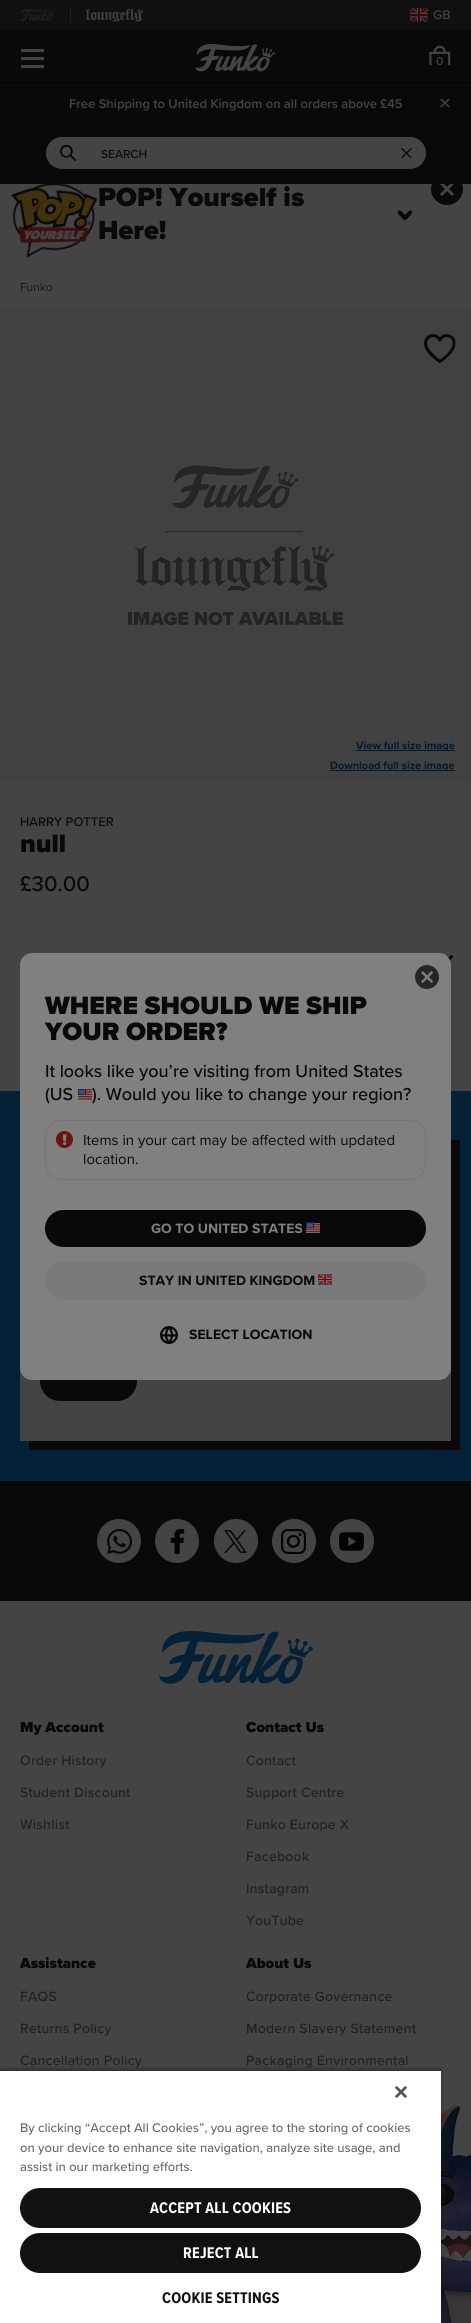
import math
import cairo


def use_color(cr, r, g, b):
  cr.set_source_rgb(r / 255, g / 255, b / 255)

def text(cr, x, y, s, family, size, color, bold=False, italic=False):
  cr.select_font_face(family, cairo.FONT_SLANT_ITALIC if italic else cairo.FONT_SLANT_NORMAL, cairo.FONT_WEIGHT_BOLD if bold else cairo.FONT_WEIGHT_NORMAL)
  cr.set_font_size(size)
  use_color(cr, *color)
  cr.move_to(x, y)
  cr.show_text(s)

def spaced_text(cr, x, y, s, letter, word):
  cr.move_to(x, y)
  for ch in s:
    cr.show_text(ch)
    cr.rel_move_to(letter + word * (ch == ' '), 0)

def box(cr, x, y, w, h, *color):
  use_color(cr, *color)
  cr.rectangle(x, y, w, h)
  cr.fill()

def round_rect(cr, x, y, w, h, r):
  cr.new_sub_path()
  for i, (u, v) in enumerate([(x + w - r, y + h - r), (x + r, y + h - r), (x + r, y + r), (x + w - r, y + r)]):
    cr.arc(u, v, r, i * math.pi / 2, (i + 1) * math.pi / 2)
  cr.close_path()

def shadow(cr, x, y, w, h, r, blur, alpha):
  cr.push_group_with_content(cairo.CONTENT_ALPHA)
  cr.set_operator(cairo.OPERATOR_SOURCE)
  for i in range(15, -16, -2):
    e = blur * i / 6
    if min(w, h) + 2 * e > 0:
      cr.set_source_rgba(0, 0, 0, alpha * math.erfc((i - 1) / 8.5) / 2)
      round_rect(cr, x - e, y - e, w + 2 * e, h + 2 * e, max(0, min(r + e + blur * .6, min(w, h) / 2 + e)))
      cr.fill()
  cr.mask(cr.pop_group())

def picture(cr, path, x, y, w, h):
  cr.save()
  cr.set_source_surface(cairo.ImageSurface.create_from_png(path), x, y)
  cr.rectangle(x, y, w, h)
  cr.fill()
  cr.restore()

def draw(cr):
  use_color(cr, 68, 68, 68)
  cr.paint()
  use_color(cr, 9, 9, 9)
  cr.arc(447, 189, 16, 0, 2 * math.pi)
  cr.fill()
  use_color(cr, 68, 68, 68)
  cr.new_path()
  cr.move_to(452, 182)
  cr.line_to(454, 184)
  cr.line_to(442, 196)
  cr.line_to(440, 194)
  cr.close_path()
  cr.fill()
  cr.new_path()
  cr.move_to(440, 184)
  cr.line_to(442, 182)
  cr.line_to(454, 194)
  cr.line_to(452, 196)
  cr.close_path()
  cr.fill()
  box(cr, 0, 30, 471, 154, 9, 9, 9)
  box(cr, 0, 0, 471, 30, 16, 16, 16)
  picture(cr, "img_01.png", 20, 9, 35, 12)
  box(cr, 70, 7, 1, 16, 32, 32, 32)
  picture(cr, "img_02.png", 86, 8, 58, 14)
  picture(cr, "img_03.png", 410, 8, 18, 14)
  picture(cr, "img_04.png", 21, 49, 23, 19)
  picture(cr, "img_05.png", 195, 44, 80, 28)
  picture(cr, "img_06.png", 429, 45, 22, 21)
  use_color(cr, 68, 68, 68)
  round_rect(cr, 46, 137, 380, 32, 16)
  cr.fill()
  picture(cr, "img_07.png", 60, 145, 16, 16)
  picture(cr, "img_08.png", 401, 148, 11, 11)
  box(cr, 0, 85, 471, 1, 16, 16, 16)
  picture(cr, "img_09.png", 10, 184, 88, 74)
  picture(cr, "img_10.png", 397, 210, 16, 10)
  box(cr, 0, 310, 471, 471, 65, 65, 66)
  picture(cr, "img_11.png", 424, 334, 32, 29)
  picture(cr, "img_12.png", 128, 465, 215, 160)
  box(cr, 356, 750, 99, 1, 5, 25, 45)
  box(cr, 330, 770, 125, 1, 5, 25, 45)
  picture(cr, "img_13.png", 445, 955, 8, 6)
  box(cr, 0, 1091, 471, 390, 5, 33, 56)
  use_color(cr, 9, 9, 9)
  cr.new_path()
  cr.move_to(29, 1441)
  cr.line_to(29, 1450)
  cr.line_to(460, 1450)
  cr.line_to(460, 1140)
  cr.line_to(451, 1140)
  cr.line_to(451, 1441)
  cr.close_path()
  cr.fill()
  box(cr, 20, 1368, 431, 73, 68, 68, 68)
  use_color(cr, 9, 9, 9)
  round_rect(cr, 41, 1362, 95, 38, 19)
  cr.fill_preserve()
  cr.stroke()
  box(cr, 0, 1481, 471, 120, 9, 9, 9)
  use_color(cr, 68, 68, 68)
  cr.arc(119, 1541, 22, 0, 2 * math.pi)
  cr.fill()
  picture(cr, "img_14.png", 107, 1529, 25, 25)
  cr.arc(177, 1541, 22, 0, 2 * math.pi)
  cr.fill()
  picture(cr, "img_15.png", 170, 1529, 15, 25)
  cr.arc(236, 1541, 22, 0, 2 * math.pi)
  cr.fill()
  picture(cr, "img_16.png", 224, 1530, 23, 23)
  cr.arc(294, 1541, 22, 0, 2 * math.pi)
  cr.fill()
  picture(cr, "img_17.png", 281, 1529, 25, 25)
  cr.arc(352, 1541, 22, 0, 2 * math.pi)
  cr.fill()
  picture(cr, "img_18.png", 339, 1532, 25, 19)
  picture(cr, "img_19.png", 159, 1631, 154, 53)
  picture(cr, "img_20.png", 441, 2105, 30, 218)
  use_color(cr, 128, 128, 128)
  round_rect(cr, 20, 953, 431, 427, 12)
  cr.fill()
  picture(cr, "img_21.png", 415, 965, 24, 24)
  picture(cr, "img_22.png", 78, 1089, 14, 11)
  round_rect(cr, 45.5, 1120.5, 380, 59, 15.5)
  use_color(cr, 118, 118, 121)
  cr.set_line_width(1)
  cr.stroke()
  picture(cr, "img_23.png", 56, 1131, 17, 17)
  use_color(cr, 9, 9, 9)
  round_rect(cr, 46, 1211, 379, 35, 17.5)
  cr.fill_preserve()
  cr.set_line_width(2)
  cr.stroke()
  picture(cr, "img_24.png", 306, 1222, 14, 11)
  use_color(cr, 122, 122, 124)
  round_rect(cr, 45, 1262, 381, 38, 19)
  cr.fill()
  picture(cr, "img_25.png", 318, 1274, 14, 11)
  picture(cr, "img_26.png", 160, 1326, 18, 18)
  use_color(cr, 0, 0, 0)
  shadow(cr, 0, 2069, 441, 254, 0, 2, 0.35)
  box(cr, 0, 2071, 441, 252, 255, 255, 255)
  picture(cr, "img_27.png", 395, 2086, 12, 12)
  use_color(cr, 17, 17, 17)
  round_rect(cr, 21, 2189, 399, 38, 19)
  cr.fill_preserve()
  cr.stroke()
  round_rect(cr, 21, 2234, 399, 38, 19)
  cr.fill_preserve()
  cr.stroke()
  text(cr, 433, 19, "GB", "Proxima Nova Medium", 13, (68, 68, 68))
  text(cr, 436, 65, "0", "Proxima Nova Medium", 12, (68, 68, 68))
  text(cr, 101, 158, "SEARCH", "Proxima Nova Medium", 12, (9, 9, 9))
  text(cr, 69, 108, "Free Shipping to United Kingdom on all orders above £45", "Proxima Nova SemiBold", 13, (68, 68, 68))
  text(cr, 439, 111, "×", "Proxima Nova Medium", 24, (68, 68, 68))
  text(cr, 98, 206, "POP! Yourself is", "Proxima Nova Black", 27.25, (9, 9, 9))
  text(cr, 98, 239, "Here!", "Proxima Nova Black", 27.25, (9, 9, 9))
  text(cr, 20, 291, "Funko", "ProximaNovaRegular", 12, (26, 26, 26))
  text(cr, 356, 749, "View full size image", "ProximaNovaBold", 11, (5, 25, 45), bold=True)
  text(cr, 330, 769, "Download full size image", "ProximaNovaBold", 11, (5, 25, 45), bold=True)
  text(cr, 20, 826, "HARRY POTTER", "Proxima Nova Medium", 13, (9, 9, 9))
  text(cr, 20, 852, "null", "Proxima Nova Black", 26, (9, 9, 9))
  text(cr, 20, 891, "£30.00", "Proxima Nova Medium", 22, (9, 9, 9))
  text(cr, 20, 1732, "My Account", "Proxima Nova Black", 15, (9, 9, 9))
  cr.select_font_face("Proxima Nova Medium")
  cr.set_font_size(14)
  use_color(cr, 32, 32, 32)
  spaced_text(cr, 20, 1765, "Order History", 0.25, 0)
  spaced_text(cr, 20, 1797, "Student Discount", 0.25, 0)
  spaced_text(cr, 20, 1829, "Wishlist", 0.25, 0)
  text(cr, 246, 1732, "Contact Us", "Proxima Nova Black", 15, (9, 9, 9))
  cr.select_font_face("Proxima Nova Medium")
  cr.set_font_size(14)
  use_color(cr, 32, 32, 32)
  spaced_text(cr, 246, 1765, "Contact", 0.25, 0)
  spaced_text(cr, 246, 1797, "Support Centre", 0.25, 0)
  spaced_text(cr, 246, 1829, "Funko Europe X", 0.25, 0)
  spaced_text(cr, 246, 1861, "Facebook", 0.25, 0)
  spaced_text(cr, 246, 1893, "Instagram", 0.25, 0)
  spaced_text(cr, 246, 1925, "YouTube", 0.25, 0)
  text(cr, 20, 1968, "Assistance", "Proxima Nova Black", 15, (9, 9, 9))
  cr.select_font_face("Proxima Nova Medium")
  cr.set_font_size(14)
  use_color(cr, 32, 32, 32)
  spaced_text(cr, 20, 2001, "FAQS", 0.25, 0)
  spaced_text(cr, 20, 2033, "Returns Policy", 0.25, 0)
  spaced_text(cr, 20, 2065, "Cancellation Policy", 0.25, 0)
  text(cr, 246, 1968, "About Us", "Proxima Nova Black", 15, (9, 9, 9))
  cr.select_font_face("Proxima Nova Medium")
  cr.set_font_size(14)
  use_color(cr, 32, 32, 32)
  spaced_text(cr, 246, 2001, "Corporate Governance", 0.25, 0)
  spaced_text(cr, 246, 2033, "Modern Slavery Statement", 0.25, 0)
  spaced_text(cr, 246, 2065, "Packaging Environmental", 0.25, 0)
  text(cr, 45, 1014, "WHERE SHOULD WE SHIP", "Proxima Nova Black", 26, (9, 9, 9))
  text(cr, 45, 1040, "YOUR ORDER?", "Proxima Nova Black", 26, (9, 9, 9))
  text(cr, 45, 1077, "It looks like you’re visiting from United States", "Proxima Nova Medium", 18, (9, 9, 9))
  text(cr, 45, 1100, "(US", "Proxima Nova Medium", 18, (9, 9, 9))
  text(cr, 92, 1100, "). Would you like to change your region?", "Proxima Nova Medium", 18, (9, 9, 9))
  text(cr, 83, 1145, "Items in your cart may be affected with updated", "ProximaNovaRegular", 15, (9, 9, 9))
  text(cr, 83, 1164, "location.", "ProximaNovaRegular", 15, (9, 9, 9))
  text(cr, 151, 1233, "GO TO UNITED STATES", "ProximaNovaBold", 14, (128, 128, 128), bold=True)
  text(cr, 139, 1285, "STAY IN UNITED KINGDOM", "ProximaNovaBold", 14, (9, 9, 9), bold=True)
  text(cr, 189, 1339, "SELECT LOCATION", "ProximaNovaBold", 14, (9, 9, 9), bold=True)
  text(cr, 20, 2132, "By clicking “Accept All Cookies”, you agree to the storing of cookies", "Proxima Nova Medium", 13, (105, 105, 105))
  text(cr, 20, 2152, "on your device to enhance site navigation, analyze site usage, and", "Proxima Nova Medium", 13, (105, 105, 105))
  text(cr, 20, 2171, "assist in our marketing efforts.", "Proxima Nova Medium", 13, (105, 105, 105))
  cr.select_font_face("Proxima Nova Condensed", cairo.FONT_SLANT_NORMAL, cairo.FONT_WEIGHT_BOLD)
  cr.set_font_size(16)
  use_color(cr, 255, 255, 255)
  spaced_text(cr, 150, 2213, "ACCEPT ALL COOKIES", 0.2, 0)
  spaced_text(cr, 183, 2258, "REJECT ALL", 0.2, 0)
  use_color(cr, 17, 17, 17)
  spaced_text(cr, 162, 2303, "COOKIE SETTINGS", 0.2, 0)


surface = cairo.ImageSurface(cairo.FORMAT_RGB24, 471, 2323)
cr = cairo.Context(surface)
options = cairo.FontOptions()
options.set_hint_metrics(cairo.HINT_METRICS_OFF)
options.set_hint_style(cairo.HINT_STYLE_NONE)
cr.set_font_options(options)
cr.set_miter_limit(4)
draw(cr)
surface.write_to_png("out.png")
